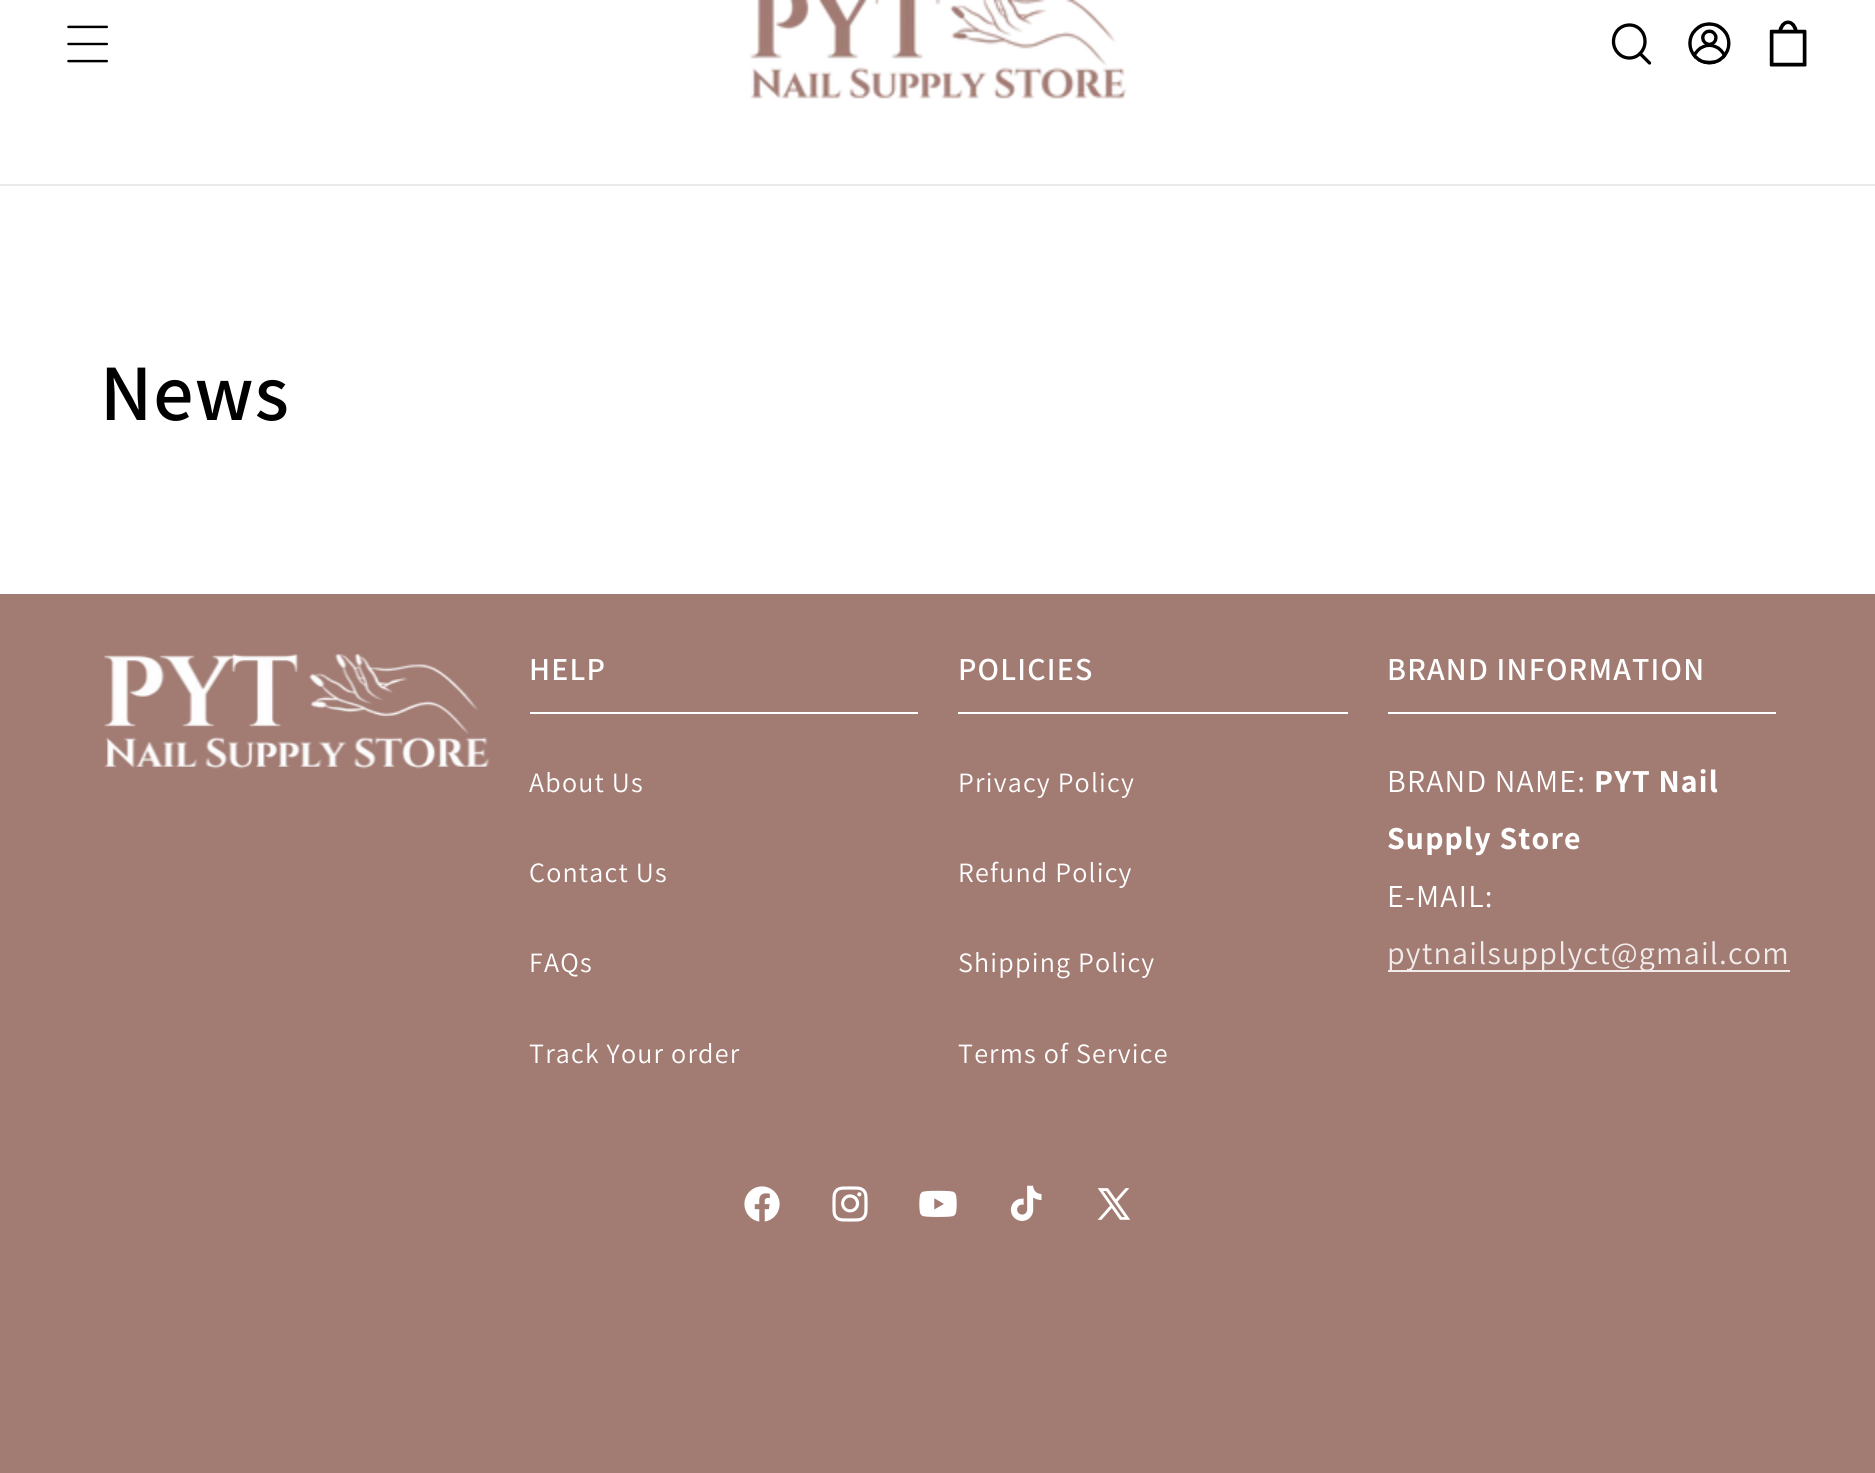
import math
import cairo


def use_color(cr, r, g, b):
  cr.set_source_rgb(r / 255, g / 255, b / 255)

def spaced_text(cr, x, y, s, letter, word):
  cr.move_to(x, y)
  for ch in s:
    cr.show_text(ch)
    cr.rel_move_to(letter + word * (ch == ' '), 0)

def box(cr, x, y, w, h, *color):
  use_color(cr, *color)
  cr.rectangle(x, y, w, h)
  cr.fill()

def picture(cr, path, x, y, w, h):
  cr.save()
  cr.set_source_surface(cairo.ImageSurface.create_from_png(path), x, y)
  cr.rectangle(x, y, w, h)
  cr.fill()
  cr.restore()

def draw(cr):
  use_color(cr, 255, 255, 255)
  cr.paint()
  box(cr, 0, 184, 1875, 2, 235, 235, 235)
  picture(cr, "img_01.png", 67, 25, 41, 38)
  picture(cr, "img_02.png", 749, 0, 378, 99)
  cr.new_path()
  cr.move_to(1645, 41.5)
  cr.curve_to(1645, 50.5, 1638, 58, 1629.5, 58)
  cr.curve_to(1620.5, 58, 1613.5, 50.5, 1613.5, 41.5)
  cr.curve_to(1613.5, 32, 1620.5, 25, 1629.5, 25)
  cr.curve_to(1638, 25, 1645, 32, 1645, 41.5)
  cr.close_path()
  use_color(cr, 0, 0, 0)
  cr.set_line_width(3.3)
  cr.stroke()
  cr.new_path()
  cr.move_to(1640, 53.5)
  cr.line_to(1649.5, 63)
  cr.set_line_cap(cairo.LINE_CAP_ROUND)
  cr.stroke()
  picture(cr, "img_03.png", 1688, 22, 43, 43)
  picture(cr, "img_04.png", 1769, 20, 38, 47)
  box(cr, 0, 594, 1875, 879, 162, 123, 115)
  picture(cr, "img_05.png", 104, 653, 386, 116)
  box(cr, 530, 712, 388, 2, 255, 255, 255)
  box(cr, 958, 712, 390, 2, 255, 255, 255)
  box(cr, 1388, 712, 388, 2, 255, 255, 255)
  box(cr, 1388, 970, 402, 2, 241, 235, 234)
  picture(cr, "img_06.png", 744, 1186, 36, 36)
  picture(cr, "img_07.png", 832, 1186, 36, 36)
  picture(cr, "img_08.png", 919, 1190, 38, 27)
  picture(cr, "img_09.png", 1010, 1185, 32, 36)
  picture(cr, "img_10.png", 1097, 1188, 34, 32)
  cr.select_font_face("Assistant SemiBold")
  cr.set_font_size(80)
  use_color(cr, 0, 0, 0)
  spaced_text(cr, 100, 420, "News", 1.2, 0)
  cr.set_font_size(32)
  use_color(cr, 255, 255, 255)
  spaced_text(cr, 529, 680, "HELP", 1.2, 0)
  cr.select_font_face("Assistant")
  cr.set_font_size(28)
  spaced_text(cr, 529, 792, "About Us", 1.2, 0)
  spaced_text(cr, 529, 882, "Contact Us", 1.2, 0)
  spaced_text(cr, 529, 972, "FAQs", 1.2, 0)
  spaced_text(cr, 529, 1063, "Track Your order", 1.2, 0)
  cr.select_font_face("Assistant SemiBold")
  cr.set_font_size(32)
  spaced_text(cr, 958, 680, "POLICIES", 1.2, 0)
  cr.select_font_face("Assistant")
  cr.set_font_size(28)
  spaced_text(cr, 958, 792, "Privacy Policy", 1.2, 0)
  spaced_text(cr, 958, 882, "Refund Policy", 1.2, 0)
  spaced_text(cr, 958, 972, "Shipping Policy", 1.2, 0)
  spaced_text(cr, 958, 1063, "Terms of Service", 1.2, 0)
  cr.select_font_face("Assistant SemiBold")
  cr.set_font_size(32)
  spaced_text(cr, 1387, 680, "BRAND INFORMATION", 1.2, 0)
  cr.select_font_face("Assistant")
  spaced_text(cr, 1387, 792, "BRAND NAME:", 1.2, 0)
  cr.select_font_face("Assistant", cairo.FONT_SLANT_NORMAL, cairo.FONT_WEIGHT_BOLD)
  spaced_text(cr, 1594, 792, "PYT Nail", 1.2, 0)
  spaced_text(cr, 1387, 849, "Supply Store", 1.2, 0)
  cr.select_font_face("Assistant")
  spaced_text(cr, 1387, 907, "E-MAIL:", 1.2, 0)
  use_color(cr, 241, 235, 234)
  spaced_text(cr, 1387, 964, "pytnailsupplyct@gmail.com", 1.2, 0)


surface = cairo.ImageSurface(cairo.FORMAT_RGB24, 1875, 1473)
cr = cairo.Context(surface)
options = cairo.FontOptions()
options.set_hint_metrics(cairo.HINT_METRICS_OFF)
options.set_hint_style(cairo.HINT_STYLE_NONE)
cr.set_font_options(options)
cr.set_miter_limit(4)
draw(cr)
surface.write_to_png("out.png")
